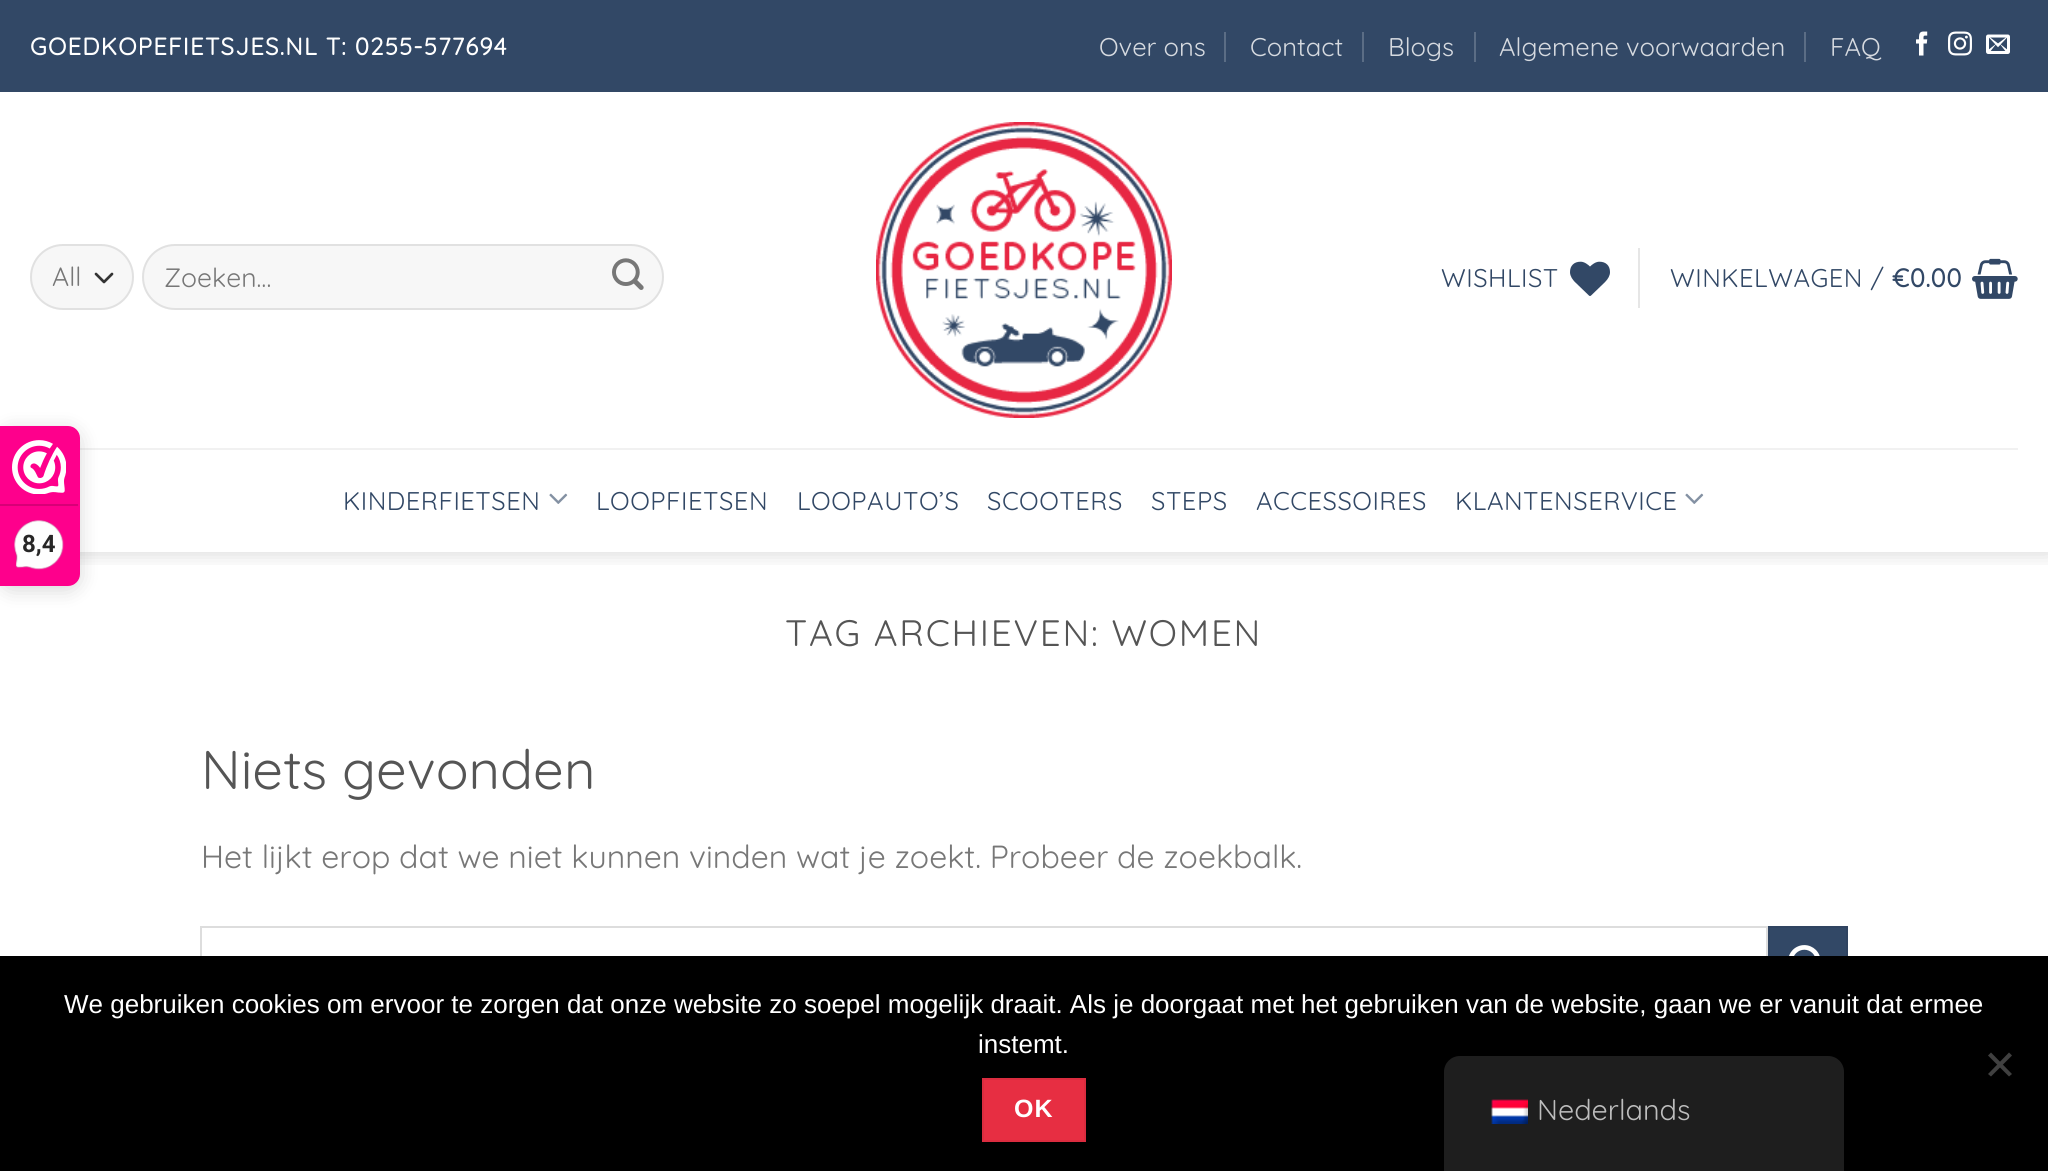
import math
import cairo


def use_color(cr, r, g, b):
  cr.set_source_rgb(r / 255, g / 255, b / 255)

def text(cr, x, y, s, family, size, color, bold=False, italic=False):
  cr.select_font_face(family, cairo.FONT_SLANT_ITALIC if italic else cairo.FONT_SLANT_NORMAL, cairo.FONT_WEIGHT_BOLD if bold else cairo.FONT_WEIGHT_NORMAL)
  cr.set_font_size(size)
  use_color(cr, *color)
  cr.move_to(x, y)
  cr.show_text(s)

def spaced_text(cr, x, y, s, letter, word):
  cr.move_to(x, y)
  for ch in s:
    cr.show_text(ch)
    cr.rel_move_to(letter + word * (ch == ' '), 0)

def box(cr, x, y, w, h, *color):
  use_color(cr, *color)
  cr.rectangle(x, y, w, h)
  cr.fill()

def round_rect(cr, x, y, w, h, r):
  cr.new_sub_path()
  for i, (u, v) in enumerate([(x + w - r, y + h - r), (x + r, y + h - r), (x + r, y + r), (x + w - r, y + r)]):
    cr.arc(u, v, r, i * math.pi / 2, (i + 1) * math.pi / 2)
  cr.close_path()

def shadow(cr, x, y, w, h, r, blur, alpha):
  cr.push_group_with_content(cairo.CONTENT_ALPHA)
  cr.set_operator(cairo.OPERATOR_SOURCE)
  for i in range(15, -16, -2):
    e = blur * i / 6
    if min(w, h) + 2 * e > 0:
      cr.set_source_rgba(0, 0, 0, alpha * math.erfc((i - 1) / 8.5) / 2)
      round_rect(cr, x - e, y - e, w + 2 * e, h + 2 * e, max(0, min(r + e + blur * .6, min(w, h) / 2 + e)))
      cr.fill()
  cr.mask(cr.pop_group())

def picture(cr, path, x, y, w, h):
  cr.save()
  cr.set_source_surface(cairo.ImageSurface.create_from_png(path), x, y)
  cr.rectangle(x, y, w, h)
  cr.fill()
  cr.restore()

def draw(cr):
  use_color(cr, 255, 255, 255)
  cr.paint()
  cr.save()
  cr.rectangle(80, 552, 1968, 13)
  cr.clip()
  use_color(cr, 0, 0, 0)
  shadow(cr, 2, 2, 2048, 552, 0, 10, 0.15)
  cr.restore()
  box(cr, 0, 0, 2048, 92, 50, 72, 102)
  box(cr, 1224, 32, 2, 30, 91, 109, 133)
  box(cr, 1362, 32, 2, 30, 91, 109, 133)
  box(cr, 1474, 32, 2, 30, 91, 109, 133)
  box(cr, 1804, 32, 2, 30, 91, 109, 133)
  picture(cr, "img_01.png", 1916, 31, 12, 25)
  picture(cr, "img_02.png", 1948, 31, 24, 25)
  picture(cr, "img_03.png", 1986, 34, 24, 20)
  use_color(cr, 247, 247, 247)
  round_rect(cr, 30, 244, 104, 66, 33)
  cr.fill()
  cr.new_path()
  cr.move_to(96, 274)
  cr.line_to(104, 282)
  cr.line_to(112, 274)
  use_color(cr, 51, 51, 51)
  cr.set_line_width(2.7)
  cr.set_line_cap(cairo.LINE_CAP_ROUND)
  cr.set_line_join(cairo.LINE_JOIN_ROUND)
  cr.stroke()
  round_rect(cr, 31, 245, 102, 64, 32)
  cr.set_source_rgba(0, 0, 0, 0.09)
  cr.set_line_width(2)
  cr.set_line_cap(cairo.LINE_CAP_BUTT)
  cr.set_line_join(cairo.LINE_JOIN_MITER)
  cr.stroke()
  use_color(cr, 247, 247, 247)
  round_rect(cr, 142, 244, 522, 66, 33)
  cr.fill()
  round_rect(cr, 143, 245, 520, 64, 32)
  cr.set_source_rgba(0, 0, 0, 0.09)
  cr.stroke()
  picture(cr, "img_04.png", 612, 258, 32, 32)
  picture(cr, "img_05.png", 876, 122, 296, 296)
  picture(cr, "img_06.png", 1570, 261, 40, 35)
  box(cr, 1638, 248, 2, 60, 230, 230, 230)
  picture(cr, "img_07.png", 1972, 258, 46, 41)
  box(cr, 80, 448, 1938, 2, 241, 241, 241)
  picture(cr, "img_08.png", 549, 493, 19, 11)
  picture(cr, "img_08.png", 1685, 493, 19, 11)
  cr.rectangle(201, 927, 1566, 76)
  use_color(cr, 221, 221, 221)
  cr.stroke()
  box(cr, 1770, 928, 76, 28, 50, 72, 102)
  cr.rectangle(1769, 927, 78, 76)
  use_color(cr, 48, 68, 97)
  cr.stroke()
  picture(cr, "img_09.png", 1789, 945, 31, 11)
  use_color(cr, 0, 0, 0)
  shadow(cr, 0, 430, 80, 160, 12, 10, 0.15)
  use_color(cr, 254, 0, 140)
  cr.new_path()
  cr.move_to(0, 426)
  cr.line_to(68, 426)
  cr.curve_to(74.5, 426, 80, 431.5, 80, 438)
  cr.line_to(80, 574)
  cr.curve_to(80, 580.5, 74.5, 586, 68, 586)
  cr.line_to(0, 586)
  cr.close_path()
  cr.fill()
  picture(cr, "img_10.png", 12, 440, 54, 54)
  box(cr, 0, 504, 78, 2, 216, 0, 119)
  picture(cr, "img_11.png", 14, 520, 50, 50)
  box(cr, 0, 956, 2048, 215, 0, 0, 0)
  use_color(cr, 64, 64, 64)
  cr.new_path()
  cr.move_to(2009, 1052.5)
  cr.line_to(2012, 1055.5)
  cr.line_to(1991, 1076.5)
  cr.line_to(1988, 1074)
  cr.close_path()
  cr.fill()
  cr.new_path()
  cr.move_to(1988, 1055.5)
  cr.line_to(1991, 1052.5)
  cr.line_to(2012, 1074)
  cr.line_to(2009, 1076.5)
  cr.close_path()
  cr.fill()
  use_color(cr, 231, 46, 66)
  cr.rectangle(983, 1079, 102, 62)
  cr.fill_preserve()
  use_color(cr, 219, 44, 63)
  cr.stroke()
  use_color(cr, 30, 30, 30)
  cr.new_path()
  cr.move_to(1460, 1056)
  cr.line_to(1828, 1056)
  cr.curve_to(1837, 1056, 1844, 1063, 1844, 1072)
  cr.line_to(1844, 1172)
  cr.line_to(1444, 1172)
  cr.line_to(1444, 1072)
  cr.curve_to(1444, 1063, 1451, 1056, 1460, 1056)
  cr.close_path()
  cr.fill()
  picture(cr, "img_12.png", 1491, 1099, 37, 25)
  cr.select_font_face("Quicksand", cairo.FONT_SLANT_NORMAL, cairo.FONT_WEIGHT_BOLD)
  cr.set_font_size(24)
  use_color(cr, 255, 255, 255)
  spaced_text(cr, 30, 55, "GOEDKOPEFIETSJES.NL T: 0255-577694", 1.2, 0)
  text(cr, 1099, 56, "Over ons", "Quicksand", 25.6, (214, 218, 224))
  text(cr, 1250, 56, "Contact", "Quicksand", 25.6, (214, 218, 224))
  text(cr, 1388, 56, "Blogs", "Quicksand", 25.6, (214, 218, 224))
  text(cr, 1499, 56, "Algemene voorwaarden", "Quicksand", 25.6, (214, 218, 224))
  text(cr, 1830, 56, "FAQ", "Quicksand", 25.6, (214, 218, 224))
  text(cr, 52, 286, "All", "Quicksand", 26.5, (119, 119, 119))
  text(cr, 164, 287, "Zoeken…", "Quicksand", 26.5, (119, 119, 119))
  cr.set_font_size(25.6)
  use_color(cr, 50, 72, 102)
  spaced_text(cr, 1441, 287, "WISHLIST", 0.5, 0)
  spaced_text(cr, 1670, 287, "WINKELWAGEN /", 0.5, 0)
  cr.select_font_face("Quicksand", cairo.FONT_SLANT_NORMAL, cairo.FONT_WEIGHT_BOLD)
  spaced_text(cr, 1892, 287, "€0.00", 0.5, 0)
  cr.select_font_face("Quicksand")
  spaced_text(cr, 343, 510, "KINDERFIETSEN", 0.5, 0)
  spaced_text(cr, 596, 510, "LOOPFIETSEN", 0.5, 0)
  spaced_text(cr, 797, 510, "LOOPAUTO’S", 0.5, 0)
  spaced_text(cr, 987, 510, "SCOOTERS", 0.5, 0)
  spaced_text(cr, 1151, 510, "STEPS", 0.5, 0)
  spaced_text(cr, 1256, 510, "ACCESSOIRES", 0.5, 0)
  spaced_text(cr, 1455, 510, "KLANTENSERVICE", 0.5, 0)
  cr.set_font_size(36.75)
  use_color(cr, 85, 85, 85)
  spaced_text(cr, 785, 646, "TAG ARCHIEVEN: WOMEN", 1.8, 0)
  text(cr, 201, 789, "Niets gevonden", "Quicksand", 54.5, (85, 85, 85))
  text(cr, 201, 868, "Het lijkt erop dat we niet kunnen vinden wat je zoekt. Probeer de zoekbalk.", "Quicksand", 32, (119, 119, 119))
  text(cr, 22, 552, "8,4", "Roboto", 24, (39, 38, 38), bold=True)
  text(cr, 64, 1013, "We gebruiken cookies om ervoor te zorgen dat onze website zo soepel mogelijk draait. Als je doorgaat met het gebruiken van de website, gaan we er vanuit dat ermee", "Liberation Sans", 26, (255, 255, 255))
  text(cr, 978, 1053, "instemt.", "Liberation Sans", 26, (255, 255, 255))
  cr.select_font_face("Liberation Sans", cairo.FONT_SLANT_NORMAL, cairo.FONT_WEIGHT_BOLD)
  cr.set_font_size(25)
  spaced_text(cr, 1014, 1117, "OK", 1, 0)
  text(cr, 1537, 1120, "Nederlands", "Quicksand", 28.75, (189, 189, 189))


surface = cairo.ImageSurface(cairo.FORMAT_RGB24, 2048, 1171)
cr = cairo.Context(surface)
options = cairo.FontOptions()
options.set_hint_metrics(cairo.HINT_METRICS_OFF)
options.set_hint_style(cairo.HINT_STYLE_NONE)
cr.set_font_options(options)
cr.set_miter_limit(4)
draw(cr)
surface.write_to_png("out.png")
